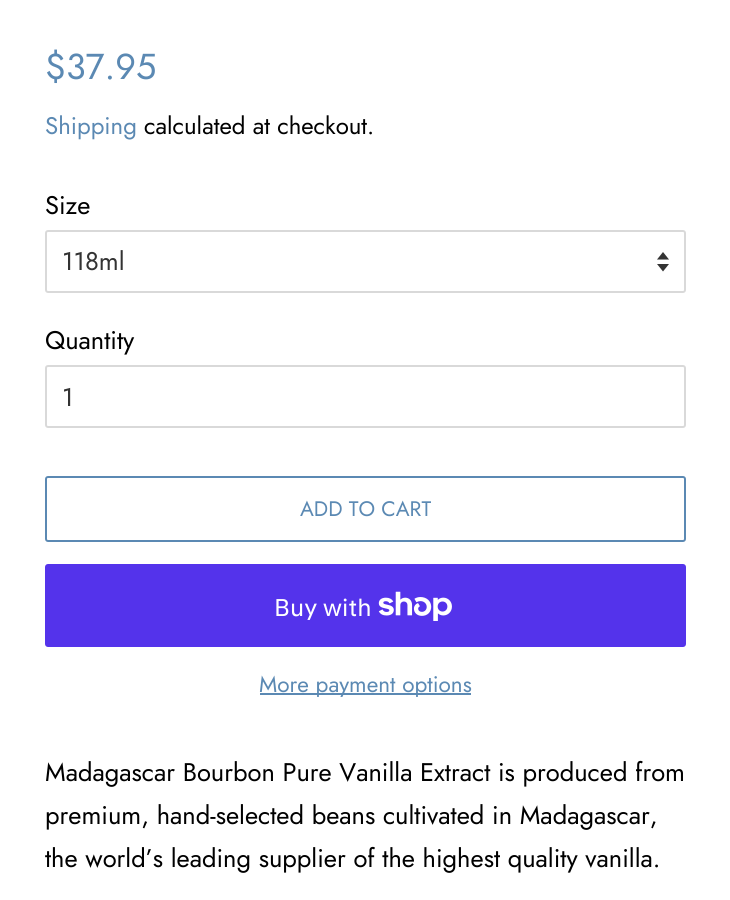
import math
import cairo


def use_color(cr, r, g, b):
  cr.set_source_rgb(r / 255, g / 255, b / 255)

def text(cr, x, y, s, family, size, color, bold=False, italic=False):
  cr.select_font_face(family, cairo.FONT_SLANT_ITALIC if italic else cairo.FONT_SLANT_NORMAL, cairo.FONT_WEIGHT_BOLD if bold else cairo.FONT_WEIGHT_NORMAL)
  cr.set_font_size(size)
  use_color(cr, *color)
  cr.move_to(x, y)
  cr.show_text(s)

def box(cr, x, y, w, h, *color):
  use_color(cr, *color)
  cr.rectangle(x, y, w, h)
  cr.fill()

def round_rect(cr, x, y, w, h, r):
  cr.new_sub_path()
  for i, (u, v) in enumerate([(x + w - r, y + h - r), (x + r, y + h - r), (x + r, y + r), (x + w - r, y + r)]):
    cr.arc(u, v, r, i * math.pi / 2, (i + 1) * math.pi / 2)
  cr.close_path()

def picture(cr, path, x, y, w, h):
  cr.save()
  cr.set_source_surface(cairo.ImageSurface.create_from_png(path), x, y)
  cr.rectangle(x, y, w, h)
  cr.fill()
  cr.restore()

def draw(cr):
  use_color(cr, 255, 255, 255)
  cr.paint()
  picture(cr, "img_01.png", 657, 252, 12, 20)
  round_rect(cr, 46, 231, 639, 61, 2)
  use_color(cr, 217, 217, 217)
  cr.stroke()
  round_rect(cr, 46, 366, 639, 61, 2)
  cr.stroke()
  round_rect(cr, 46, 477, 639, 64, 2)
  use_color(cr, 91, 137, 179)
  cr.stroke()
  use_color(cr, 84, 51, 235)
  round_rect(cr, 45, 564, 641, 83, 3)
  cr.fill()
  picture(cr, "img_02.png", 378, 591, 74, 30)
  box(cr, 260, 693, 211, 2, 91, 137, 179)
  text(cr, 45, 79, "$37.95", "Jost", 36, (91, 137, 179))
  text(cr, 45, 134, "Shipping", "Jost", 24, (91, 137, 179))
  text(cr, 144, 134, "calculated at checkout.", "Jost", 24, (0, 0, 0))
  text(cr, 45, 214, "Size", "Jost", 25.5, (0, 0, 0))
  text(cr, 62, 270, "118ml", "Jost", 25.5, (51, 51, 51))
  text(cr, 45, 349, "Quantity", "Jost", 25.5, (0, 0, 0))
  text(cr, 62, 406, "1", "Jost", 25.5, (51, 51, 51))
  text(cr, 300, 516, "ADD TO CART", "Jost", 21, (91, 137, 179))
  text(cr, 274, 616, "Buy with", "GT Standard", 24, (255, 255, 255))
  text(cr, 259, 692, "More payment options", "Jost", 22.5, (91, 137, 179))
  text(cr, 45, 781, "Madagascar Bourbon Pure Vanilla Extract is produced from", "Jost", 25.5, (0, 0, 0))
  text(cr, 45, 824, "premium, hand-selected beans cultivated in Madagascar,", "Jost", 25.5, (0, 0, 0))
  text(cr, 45, 867, "the world’s leading supplier of the highest quality vanilla.", "Jost", 25.5, (0, 0, 0))


surface = cairo.ImageSurface(cairo.FORMAT_RGB24, 730, 900)
cr = cairo.Context(surface)
options = cairo.FontOptions()
options.set_hint_metrics(cairo.HINT_METRICS_OFF)
options.set_hint_style(cairo.HINT_STYLE_NONE)
cr.set_font_options(options)
cr.set_miter_limit(4)
draw(cr)
surface.write_to_png("out.png")
